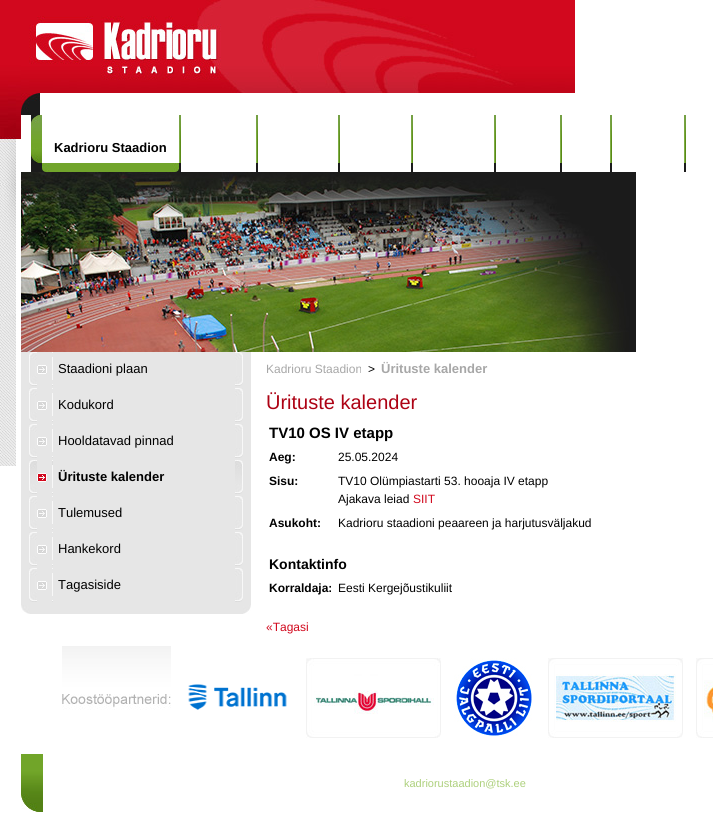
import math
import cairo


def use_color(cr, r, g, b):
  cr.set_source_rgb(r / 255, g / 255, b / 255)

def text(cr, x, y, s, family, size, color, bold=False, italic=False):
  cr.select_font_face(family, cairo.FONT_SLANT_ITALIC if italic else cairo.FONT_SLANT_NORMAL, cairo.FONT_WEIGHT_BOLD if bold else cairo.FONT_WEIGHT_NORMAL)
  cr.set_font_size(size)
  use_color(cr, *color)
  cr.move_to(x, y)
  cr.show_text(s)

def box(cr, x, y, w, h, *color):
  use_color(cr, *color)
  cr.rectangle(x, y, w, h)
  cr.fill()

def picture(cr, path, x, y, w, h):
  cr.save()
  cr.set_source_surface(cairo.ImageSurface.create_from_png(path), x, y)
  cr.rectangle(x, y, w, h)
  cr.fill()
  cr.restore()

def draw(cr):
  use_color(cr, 255, 255, 255)
  cr.paint()
  picture(cr, "img_01.png", 0, 0, 16, 466)
  picture(cr, "img_02.png", 16, 0, 5, 139)
  picture(cr, "img_03.png", 21, 0, 554, 93)
  picture(cr, "img_04.png", 21, 93, 19, 22)
  picture(cr, "img_05.png", 31, 115, 11, 57)
  picture(cr, "img_06.png", 42, 163, 7, 9)
  box(cr, 49, 163, 123, 9, 114, 165, 44)
  picture(cr, "img_07.png", 172, 163, 7, 9)
  picture(cr, "img_08.png", 179, 115, 2, 57)
  picture(cr, "img_08.png", 256, 115, 2, 57)
  picture(cr, "img_08.png", 338, 115, 2, 57)
  picture(cr, "img_08.png", 411, 115, 2, 57)
  picture(cr, "img_08.png", 494, 115, 2, 57)
  picture(cr, "img_08.png", 560, 115, 2, 57)
  picture(cr, "img_08.png", 610, 115, 2, 57)
  picture(cr, "img_08.png", 684, 115, 2, 57)
  picture(cr, "img_09.png", 21, 172, 615, 180)
  box(cr, 21, 352, 230, 262, 230, 230, 230)
  picture(cr, "img_10.png", 29, 352, 8, 34)
  picture(cr, "img_11.png", 37, 365, 10, 9)
  picture(cr, "img_12.png", 52, 352, 1, 34)
  picture(cr, "img_13.png", 235, 352, 8, 34)
  picture(cr, "img_10.png", 29, 388, 8, 34)
  picture(cr, "img_11.png", 37, 401, 10, 9)
  picture(cr, "img_12.png", 52, 388, 1, 34)
  picture(cr, "img_13.png", 235, 388, 8, 34)
  picture(cr, "img_10.png", 29, 424, 8, 34)
  picture(cr, "img_11.png", 37, 437, 10, 9)
  picture(cr, "img_12.png", 52, 424, 1, 34)
  picture(cr, "img_13.png", 235, 424, 8, 34)
  picture(cr, "img_14.png", 29, 460, 8, 34)
  picture(cr, "img_15.png", 37, 473, 10, 9)
  picture(cr, "img_16.png", 52, 460, 1, 34)
  picture(cr, "img_17.png", 235, 460, 8, 34)
  picture(cr, "img_10.png", 29, 496, 8, 34)
  picture(cr, "img_11.png", 37, 509, 10, 9)
  picture(cr, "img_12.png", 52, 496, 1, 34)
  picture(cr, "img_13.png", 235, 496, 8, 34)
  picture(cr, "img_10.png", 29, 532, 8, 34)
  picture(cr, "img_11.png", 37, 545, 10, 9)
  picture(cr, "img_12.png", 52, 532, 1, 34)
  picture(cr, "img_13.png", 235, 532, 8, 34)
  picture(cr, "img_10.png", 29, 568, 8, 34)
  picture(cr, "img_11.png", 37, 581, 10, 9)
  picture(cr, "img_12.png", 52, 568, 1, 34)
  picture(cr, "img_13.png", 235, 568, 8, 34)
  picture(cr, "img_18.png", 21, 605, 9, 9)
  picture(cr, "img_19.png", 243, 605, 8, 9)
  picture(cr, "img_20.png", 62, 646, 109, 64)
  picture(cr, "img_21.png", 188, 684, 99, 26)
  picture(cr, "img_22.png", 306, 658, 135, 80)
  picture(cr, "img_23.png", 454, 658, 78, 78)
  picture(cr, "img_24.png", 548, 658, 135, 80)
  picture(cr, "img_25.png", 696, 658, 17, 80)
  picture(cr, "img_26.png", 21, 754, 22, 58)
  text(cr, 54, 152, "Kadrioru Staadion", "Liberation Sans", 13, (0, 0, 0), bold=True)
  text(cr, 58, 373, "Staadioni plaan", "Liberation Sans", 13, (0, 0, 0))
  text(cr, 58, 409, "Kodukord", "Liberation Sans", 13, (0, 0, 0))
  text(cr, 58, 445, "Hooldatavad pinnad", "Liberation Sans", 13, (0, 0, 0))
  text(cr, 58, 481, "Ürituste kalender", "Liberation Sans", 13, (0, 0, 0), bold=True)
  text(cr, 58, 517, "Tulemused", "Liberation Sans", 13, (0, 0, 0))
  text(cr, 58, 553, "Hankekord", "Liberation Sans", 13, (0, 0, 0))
  text(cr, 58, 589, "Tagasiside", "Liberation Sans", 13, (0, 0, 0))
  text(cr, 266, 373, "Kadrioru Staadion", "Liberation Sans", 12, (167, 167, 167))
  text(cr, 368, 373, ">", "Liberation Sans", 12, (0, 0, 0))
  text(cr, 381, 373, "Ürituste kalender", "Liberation Sans", 13, (167, 167, 167), bold=True)
  text(cr, 266, 409, "Ürituste kalender", "Liberation Sans", 20, (173, 2, 20))
  text(cr, 269, 438, "TV10 OS IV etapp", "Liberation Sans", 15, (0, 0, 0), bold=True)
  text(cr, 269, 461, "Aeg:", "Liberation Sans", 12, (0, 0, 0), bold=True)
  text(cr, 338, 461, "25.05.2024", "Liberation Sans", 12, (0, 0, 0))
  text(cr, 269, 485, "Sisu:", "Liberation Sans", 12, (0, 0, 0), bold=True)
  text(cr, 338, 485, "TV10 Olümpiastarti 53. hooaja IV etapp", "Liberation Sans", 12, (0, 0, 0))
  text(cr, 338, 503, "Ajakava leiad", "Liberation Sans", 12, (0, 0, 0))
  text(cr, 413, 503, "SIIT", "Liberation Sans", 12, (209, 8, 29))
  text(cr, 269, 527, "Asukoht:", "Liberation Sans", 12, (0, 0, 0), bold=True)
  text(cr, 338, 527, "Kadrioru staadioni peaareen ja harjutusväljakud", "Liberation Sans", 12, (0, 0, 0))
  text(cr, 269, 569, "Kontaktinfo", "Liberation Sans", 14, (0, 0, 0), bold=True)
  text(cr, 269, 592, "Korraldaja:", "Liberation Sans", 12, (0, 0, 0), bold=True)
  text(cr, 338, 592, "Eesti Kergejõustikuliit", "Liberation Sans", 12, (0, 0, 0))
  text(cr, 266, 631, "«Tagasi", "Liberation Sans", 12, (209, 8, 29))
  text(cr, 404, 787, "kadriorustaadion@tsk.ee", "Liberation Sans", 11, (173, 208, 124))


surface = cairo.ImageSurface(cairo.FORMAT_RGB24, 713, 831)
cr = cairo.Context(surface)
options = cairo.FontOptions()
options.set_hint_metrics(cairo.HINT_METRICS_OFF)
options.set_hint_style(cairo.HINT_STYLE_NONE)
cr.set_font_options(options)
cr.set_miter_limit(4)
draw(cr)
surface.write_to_png("out.png")
